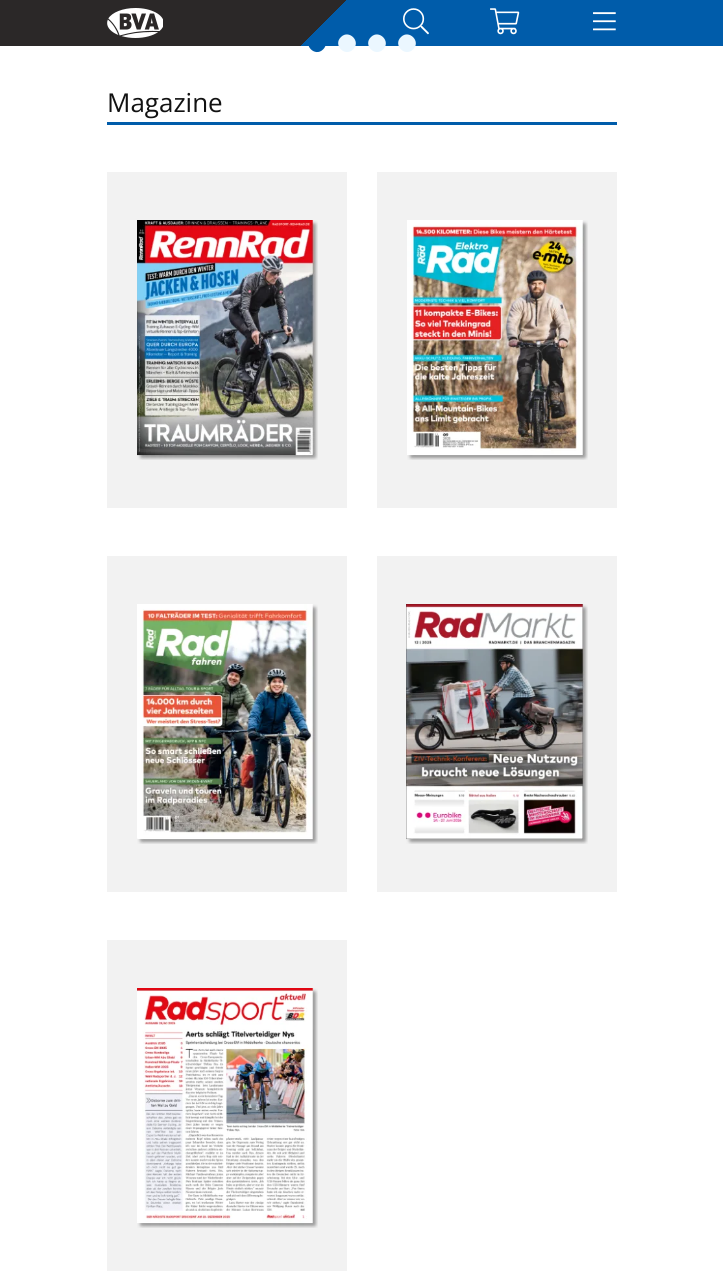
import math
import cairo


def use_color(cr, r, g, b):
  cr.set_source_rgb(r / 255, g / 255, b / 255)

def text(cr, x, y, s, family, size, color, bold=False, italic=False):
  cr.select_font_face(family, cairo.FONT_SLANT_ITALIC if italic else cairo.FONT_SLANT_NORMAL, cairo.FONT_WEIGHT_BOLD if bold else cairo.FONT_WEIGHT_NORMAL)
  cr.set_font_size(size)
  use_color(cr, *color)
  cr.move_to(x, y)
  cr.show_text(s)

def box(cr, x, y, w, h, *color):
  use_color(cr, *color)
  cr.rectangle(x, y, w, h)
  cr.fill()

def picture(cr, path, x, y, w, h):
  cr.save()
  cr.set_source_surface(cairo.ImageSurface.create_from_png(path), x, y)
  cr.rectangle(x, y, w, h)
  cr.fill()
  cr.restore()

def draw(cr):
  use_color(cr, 255, 255, 255)
  cr.paint()
  box(cr, 0, 0, 107, 46, 43, 40, 40)
  box(cr, 617, 0, 106, 46, 0, 92, 170)
  gradient = cairo.LinearGradient(501, 162, 223, -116)
  gradient.add_color_stop_rgba(0.57, 0, 0.361, 0.667, 1)
  gradient.add_color_stop_rgba(0.57, 0.169, 0.157, 0.157, 1)
  cr.set_source(gradient)
  cr.rectangle(107, 0, 510, 46)
  cr.fill()
  picture(cr, "img_01.png", 107, 8, 56, 30)
  picture(cr, "img_02.png", 403, 8, 26, 27)
  picture(cr, "img_03.png", 490, 8, 30, 27)
  picture(cr, "img_04.png", 593, 12, 23, 19)
  use_color(cr, 0, 92, 170)
  cr.new_path()
  cr.move_to(311, 37)
  cr.curve_to(319, 29, 331.5, 41.5, 323, 49.5)
  cr.curve_to(315, 57.5, 302.5, 45, 311, 37)
  cr.close_path()
  cr.fill()
  use_color(cr, 235, 247, 255)
  cr.new_path()
  cr.move_to(341, 37)
  cr.curve_to(349, 29, 361.5, 41.5, 353, 49.5)
  cr.curve_to(345, 57.5, 332.5, 45, 341, 37)
  cr.close_path()
  cr.move_to(371, 37)
  cr.curve_to(379, 29, 391.5, 41.5, 383, 49.5)
  cr.curve_to(375, 57.5, 362.5, 45, 371, 37)
  cr.close_path()
  cr.fill()
  cr.new_path()
  cr.move_to(401, 37)
  cr.curve_to(409, 29, 421.5, 41.5, 413, 49.5)
  cr.curve_to(405, 57.5, 392.5, 45, 401, 37)
  cr.close_path()
  cr.fill()
  box(cr, 107, 122, 510, 3, 0, 92, 170)
  box(cr, 107, 172, 240, 336, 242, 242, 242)
  picture(cr, "img_05.png", 137, 220, 181, 240)
  box(cr, 377, 172, 240, 336, 242, 242, 242)
  picture(cr, "img_06.png", 407, 220, 181, 240)
  box(cr, 107, 556, 240, 336, 242, 242, 242)
  picture(cr, "img_07.png", 137, 604, 181, 240)
  box(cr, 377, 556, 240, 336, 242, 242, 242)
  picture(cr, "img_08.png", 406, 604, 182, 240)
  box(cr, 107, 940, 240, 331, 242, 242, 242)
  picture(cr, "img_09.png", 137, 988, 181, 240)
  text(cr, 107, 112, "Magazine", "Open Sans", 26, (18, 18, 18))


surface = cairo.ImageSurface(cairo.FORMAT_RGB24, 723, 1271)
cr = cairo.Context(surface)
options = cairo.FontOptions()
options.set_hint_metrics(cairo.HINT_METRICS_OFF)
options.set_hint_style(cairo.HINT_STYLE_NONE)
cr.set_font_options(options)
cr.set_miter_limit(4)
draw(cr)
surface.write_to_png("out.png")
